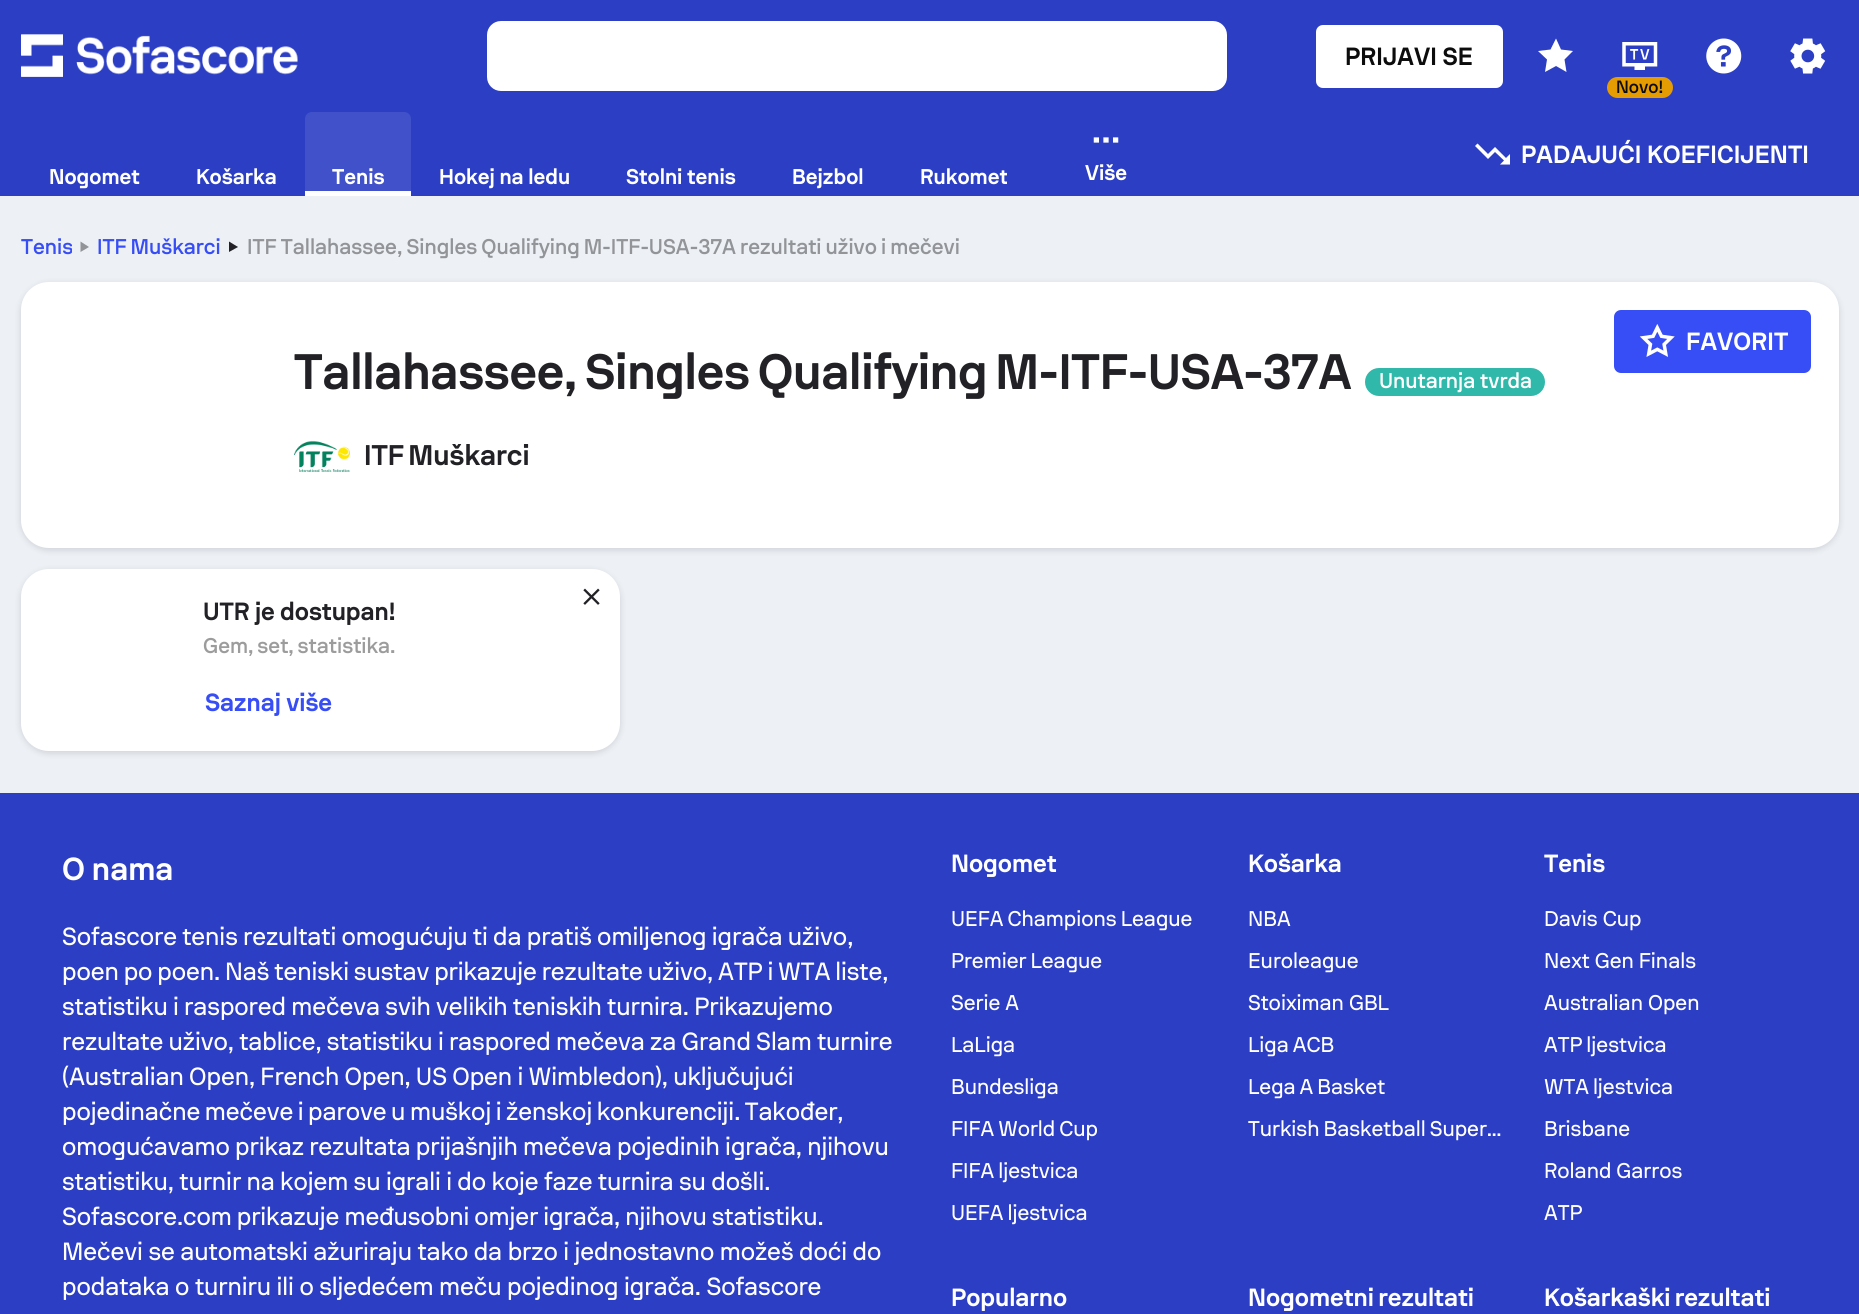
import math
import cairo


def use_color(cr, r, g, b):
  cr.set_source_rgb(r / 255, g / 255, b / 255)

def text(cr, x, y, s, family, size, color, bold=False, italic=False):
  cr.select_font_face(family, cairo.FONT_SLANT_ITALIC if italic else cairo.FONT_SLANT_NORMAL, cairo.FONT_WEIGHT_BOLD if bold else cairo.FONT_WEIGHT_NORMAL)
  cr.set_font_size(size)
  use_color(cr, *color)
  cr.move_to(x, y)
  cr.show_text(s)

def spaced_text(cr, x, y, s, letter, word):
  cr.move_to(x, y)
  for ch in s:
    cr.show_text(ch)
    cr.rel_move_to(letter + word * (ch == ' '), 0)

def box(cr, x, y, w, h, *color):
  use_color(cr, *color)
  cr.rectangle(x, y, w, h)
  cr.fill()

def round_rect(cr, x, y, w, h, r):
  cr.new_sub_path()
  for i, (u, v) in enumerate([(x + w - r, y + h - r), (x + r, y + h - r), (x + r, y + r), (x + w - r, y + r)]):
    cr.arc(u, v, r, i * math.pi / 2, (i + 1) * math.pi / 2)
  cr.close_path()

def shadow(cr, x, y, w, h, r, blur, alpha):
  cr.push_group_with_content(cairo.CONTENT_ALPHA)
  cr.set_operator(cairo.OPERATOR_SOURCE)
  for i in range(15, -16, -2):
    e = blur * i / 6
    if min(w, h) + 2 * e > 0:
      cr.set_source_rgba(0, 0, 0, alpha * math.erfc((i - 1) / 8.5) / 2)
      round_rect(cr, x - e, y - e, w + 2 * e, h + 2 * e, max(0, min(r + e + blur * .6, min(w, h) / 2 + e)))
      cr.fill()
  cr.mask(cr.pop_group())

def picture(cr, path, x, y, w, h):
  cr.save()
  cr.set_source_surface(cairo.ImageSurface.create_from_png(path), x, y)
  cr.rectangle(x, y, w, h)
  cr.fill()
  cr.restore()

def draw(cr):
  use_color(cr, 237, 241, 246)
  cr.paint()
  box(cr, 0, 0, 1859, 196, 44, 62, 196)
  picture(cr, "img_01.png", 21, 34, 277, 43)
  use_color(cr, 255, 255, 255)
  round_rect(cr, 487, 21, 740, 70, 14)
  cr.fill()
  round_rect(cr, 1316, 25, 187, 63, 7)
  cr.fill()
  cr.set_fill_rule(cairo.FILL_RULE_EVEN_ODD)
  cr.new_path()
  cr.move_to(1556, 38.5)
  cr.line_to(1561, 49.5)
  cr.line_to(1573, 51)
  cr.line_to(1564.5, 59.5)
  cr.line_to(1566.5, 72)
  cr.line_to(1556, 66)
  cr.line_to(1545, 72)
  cr.line_to(1547, 59.5)
  cr.line_to(1538, 51)
  cr.line_to(1550.5, 49.5)
  cr.close_path()
  cr.fill()
  picture(cr, "img_02.png", 1706, 38, 36, 36)
  picture(cr, "img_03.png", 1790, 38, 36, 36)
  picture(cr, "img_04.png", 1622, 42, 36, 28)
  use_color(cr, 229, 156, 3)
  round_rect(cr, 1607, 77, 66, 21, 10.5)
  cr.fill()
  use_color(cr, 255, 255, 255)
  cr.set_fill_rule(cairo.FILL_RULE_WINDING)
  cr.new_path()
  cr.move_to(1500, 164.5)
  cr.line_to(1504, 160.5)
  cr.line_to(1495, 152)
  cr.line_to(1488, 159)
  cr.line_to(1475, 146)
  cr.line_to(1477.5, 143.5)
  cr.line_to(1488, 154)
  cr.line_to(1495, 147)
  cr.line_to(1506, 158)
  cr.line_to(1510, 154)
  cr.line_to(1510, 164.5)
  cr.close_path()
  cr.fill()
  use_color(cr, 65, 81, 202)
  cr.new_path()
  cr.move_to(312, 112)
  cr.line_to(404, 112)
  cr.curve_to(408, 112, 411, 115, 411, 119)
  cr.line_to(411, 196)
  cr.line_to(305, 196)
  cr.line_to(305, 119)
  cr.curve_to(305, 115, 308, 112, 312, 112)
  cr.close_path()
  cr.fill()
  box(cr, 305, 191, 106, 5, 255, 255, 255)
  picture(cr, "img_05.png", 1093, 137, 26, 6)
  use_color(cr, 146, 148, 152)
  cr.new_path()
  cr.move_to(80.5, 252)
  cr.line_to(80.5, 241.5)
  cr.line_to(89, 247)
  cr.close_path()
  cr.fill()
  use_color(cr, 34, 34, 38)
  cr.new_path()
  cr.move_to(229, 252)
  cr.line_to(229, 241.5)
  cr.line_to(238, 247)
  cr.close_path()
  cr.fill()
  use_color(cr, 34, 34, 38)
  shadow(cr, 21, 284, 1818, 266, 28, 3.5, 0.16)
  use_color(cr, 255, 255, 255)
  round_rect(cr, 21, 282, 1818, 266, 28)
  cr.fill()
  use_color(cr, 55, 77, 245)
  round_rect(cr, 1614, 310, 197, 63, 7)
  cr.fill()
  picture(cr, "img_06.png", 1639, 324, 36, 33)
  use_color(cr, 48, 184, 171)
  round_rect(cr, 1365, 368, 180, 28, 14)
  cr.fill()
  picture(cr, "img_07.png", 294, 440, 56, 32)
  use_color(cr, 34, 34, 38)
  shadow(cr, 21, 571, 599, 182, 28, 3.5, 0.16)
  use_color(cr, 255, 255, 255)
  round_rect(cr, 21, 569, 599, 182, 28)
  cr.fill()
  picture(cr, "img_08.png", 583, 588, 17, 17)
  box(cr, 0, 793, 1859, 521, 44, 62, 196)
  cr.select_font_face("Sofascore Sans", cairo.FONT_SLANT_NORMAL, cairo.FONT_WEIGHT_BOLD)
  cr.set_font_size(24.5)
  use_color(cr, 12, 12, 13)
  spaced_text(cr, 1345, 65, "PRIJAVI SE", 0.1, 0)
  text(cr, 1616, 93, "Novo!", "Sofascore Sans Medium", 17.5, (12, 12, 13))
  cr.select_font_face("Sofascore Sans", cairo.FONT_SLANT_NORMAL, cairo.FONT_WEIGHT_BOLD)
  cr.set_font_size(24.5)
  use_color(cr, 255, 255, 255)
  spaced_text(cr, 1521, 163, "PADAJUĆI KOEFICIJENTI", 0.1, 0)
  text(cr, 49, 184, "Nogomet", "Sofascore Sans", 21, (255, 255, 255), bold=True)
  text(cr, 196, 184, "Košarka", "Sofascore Sans", 21, (255, 255, 255), bold=True)
  text(cr, 332, 184, "Tenis", "Sofascore Sans", 21, (255, 255, 255), bold=True)
  text(cr, 439, 184, "Hokej na ledu", "Sofascore Sans", 21, (255, 255, 255), bold=True)
  text(cr, 626, 184, "Stolni tenis", "Sofascore Sans", 21, (255, 255, 255), bold=True)
  text(cr, 792, 184, "Bejzbol", "Sofascore Sans", 21, (255, 255, 255), bold=True)
  text(cr, 920, 184, "Rukomet", "Sofascore Sans", 21, (255, 255, 255), bold=True)
  text(cr, 1085, 180, "Više", "Sofascore Sans", 21, (255, 255, 255), bold=True)
  cr.save()
  cr.rectangle(21, 233, 51, 28)
  cr.clip()
  text(cr, 21, 254, "Tenis", "Sofascore Sans Medium", 21, (55, 77, 245))
  cr.restore()
  cr.select_font_face("Sofascore Sans Medium")
  use_color(cr, 55, 77, 245)
  spaced_text(cr, 97, 254, "ITF Muškarci", 0, -1)
  use_color(cr, 146, 148, 152)
  spaced_text(cr, 247, 254, "ITF Tallahassee, Singles Qualifying M-ITF-USA-37A rezultati uživo i mečevi", 0, -0.75)
  cr.select_font_face("Sofascore Sans", cairo.FONT_SLANT_NORMAL, cairo.FONT_WEIGHT_BOLD)
  cr.set_font_size(24.5)
  use_color(cr, 255, 255, 255)
  spaced_text(cr, 1686, 350, "FAVORIT", 0.1, 0)
  cr.set_font_size(49)
  use_color(cr, 34, 34, 38)
  spaced_text(cr, 294, 389, "Tallahassee, Singles Qualifying M-ITF-USA-37A", -0.25, -2.5)
  text(cr, 1379, 388, "Unutarnja tvrda", "Sofascore Sans Medium", 21, (255, 255, 255))
  cr.select_font_face("Sofascore Sans", cairo.FONT_SLANT_NORMAL, cairo.FONT_WEIGHT_BOLD)
  cr.set_font_size(28)
  use_color(cr, 34, 34, 38)
  spaced_text(cr, 364, 465, "ITF Muškarci", 0, -2)
  cr.set_font_size(24.5)
  spaced_text(cr, 203, 620, "UTR je dostupan!", -0.05, 0)
  cr.select_font_face("Sofascore Sans Medium")
  cr.set_font_size(21)
  use_color(cr, 156, 156, 157)
  spaced_text(cr, 203, 653, "Gem, set, statistika.", 0, -1)
  cr.select_font_face("Sofascore Sans", cairo.FONT_SLANT_NORMAL, cairo.FONT_WEIGHT_BOLD)
  cr.set_font_size(24.5)
  use_color(cr, 55, 77, 245)
  spaced_text(cr, 205, 711, "Saznaj više", -0.05, 0)
  text(cr, 62, 880, "O nama", "Sofascore Sans", 31.5, (255, 255, 255), bold=True)
  cr.select_font_face("Sofascore Sans")
  cr.set_font_size(24.5)
  spaced_text(cr, 62, 945, "Sofascore tenis rezultati omogućuju ti da pratiš omiljenog igrača uživo,", -0.05, -0.5)
  spaced_text(cr, 62, 980, "poen po poen. Naš teniski sustav prikazuje rezultate uživo, ATP i WTA liste,", -0.05, -0.9)
  spaced_text(cr, 62, 1015, "statistiku i raspored mečeva svih velikih teniskih turnira. Prikazujemo", -0.05, -0.5)
  spaced_text(cr, 62, 1050, "rezultate uživo, tablice, statistiku i raspored mečeva za Grand Slam turnire", -0.05, -0.5)
  spaced_text(cr, 62, 1085, "(Australian Open, French Open, US Open i Wimbledon), uključujući", -0.05, -0.5)
  spaced_text(cr, 62, 1120, "pojedinačne mečeve i parove u muškoj i ženskoj konkurenciji. Također,", -0.05, -1.25)
  spaced_text(cr, 62, 1155, "omogućavamo prikaz rezultata prijašnjih mečeva pojedinih igrača, njihovu", -0.05, -0.5)
  spaced_text(cr, 62, 1190, "statistiku, turnir na kojem su igrali i do koje faze turnira su došli.", -0.05, -0.4)
  spaced_text(cr, 62, 1225, "Sofascore.com prikazuje međusobni omjer igrača, njihovu statistiku.", -0.05, -0.75)
  spaced_text(cr, 62, 1260, "Mečevi se automatski ažuriraju tako da brzo i jednostavno možeš doći do", -0.05, -0.25)
  spaced_text(cr, 62, 1295, "podataka o turniru ili o sljedećem meču pojedinog igrača. Sofascore", -0.05, -0.25)
  cr.select_font_face("Sofascore Sans", cairo.FONT_SLANT_NORMAL, cairo.FONT_WEIGHT_BOLD)
  spaced_text(cr, 951, 872, "Nogomet", -0.05, 0)
  cr.select_font_face("Sofascore Sans")
  cr.set_font_size(21)
  spaced_text(cr, 951, 926, "UEFA Champions League", 0, -1)
  spaced_text(cr, 951, 968, "Premier League", 0, -1)
  text(cr, 951, 1010, "Serie A", "Sofascore Sans", 21, (255, 255, 255))
  text(cr, 951, 1052, "LaLiga", "Sofascore Sans", 21, (255, 255, 255))
  text(cr, 951, 1094, "Bundesliga", "Sofascore Sans", 21, (255, 255, 255))
  spaced_text(cr, 951, 1136, "FIFA World Cup", 0, -1)
  spaced_text(cr, 951, 1178, "FIFA ljestvica", 0, -1)
  spaced_text(cr, 951, 1220, "UEFA ljestvica", 0, -1)
  cr.select_font_face("Sofascore Sans", cairo.FONT_SLANT_NORMAL, cairo.FONT_WEIGHT_BOLD)
  cr.set_font_size(24.5)
  spaced_text(cr, 1248, 872, "Košarka", -0.05, 0)
  text(cr, 1248, 926, "NBA", "Sofascore Sans", 21, (255, 255, 255))
  text(cr, 1248, 968, "Euroleague", "Sofascore Sans", 21, (255, 255, 255))
  text(cr, 1248, 1010, "Stoiximan GBL", "Sofascore Sans", 21, (255, 255, 255))
  spaced_text(cr, 1248, 1052, "Liga ACB", 0, -1)
  spaced_text(cr, 1248, 1094, "Lega A Basket", 0, -1)
  spaced_text(cr, 1248, 1136, "Turkish Basketball Super…", 0, -1)
  cr.select_font_face("Sofascore Sans", cairo.FONT_SLANT_NORMAL, cairo.FONT_WEIGHT_BOLD)
  cr.set_font_size(24.5)
  spaced_text(cr, 1544, 872, "Tenis", -0.05, 0)
  text(cr, 1544, 926, "Davis Cup", "Sofascore Sans", 21, (255, 255, 255))
  text(cr, 1544, 968, "Next Gen Finals", "Sofascore Sans", 21, (255, 255, 255))
  text(cr, 1544, 1010, "Australian Open", "Sofascore Sans", 21, (255, 255, 255))
  spaced_text(cr, 1544, 1052, "ATP ljestvica", 0, -1)
  spaced_text(cr, 1544, 1094, "WTA ljestvica", 0, -1)
  text(cr, 1544, 1136, "Brisbane", "Sofascore Sans", 21, (255, 255, 255))
  text(cr, 1544, 1178, "Roland Garros", "Sofascore Sans", 21, (255, 255, 255))
  text(cr, 1544, 1220, "ATP", "Sofascore Sans", 21, (255, 255, 255))
  cr.select_font_face("Sofascore Sans", cairo.FONT_SLANT_NORMAL, cairo.FONT_WEIGHT_BOLD)
  cr.set_font_size(24.5)
  spaced_text(cr, 951, 1306, "Popularno", -0.05, 0)
  spaced_text(cr, 1248, 1306, "Nogometni rezultati", -0.05, -1)
  spaced_text(cr, 1544, 1306, "Košarkaški rezultati", -0.05, -1)


surface = cairo.ImageSurface(cairo.FORMAT_RGB24, 1859, 1314)
cr = cairo.Context(surface)
options = cairo.FontOptions()
options.set_hint_metrics(cairo.HINT_METRICS_OFF)
options.set_hint_style(cairo.HINT_STYLE_NONE)
cr.set_font_options(options)
cr.set_miter_limit(4)
draw(cr)
surface.write_to_png("out.png")
